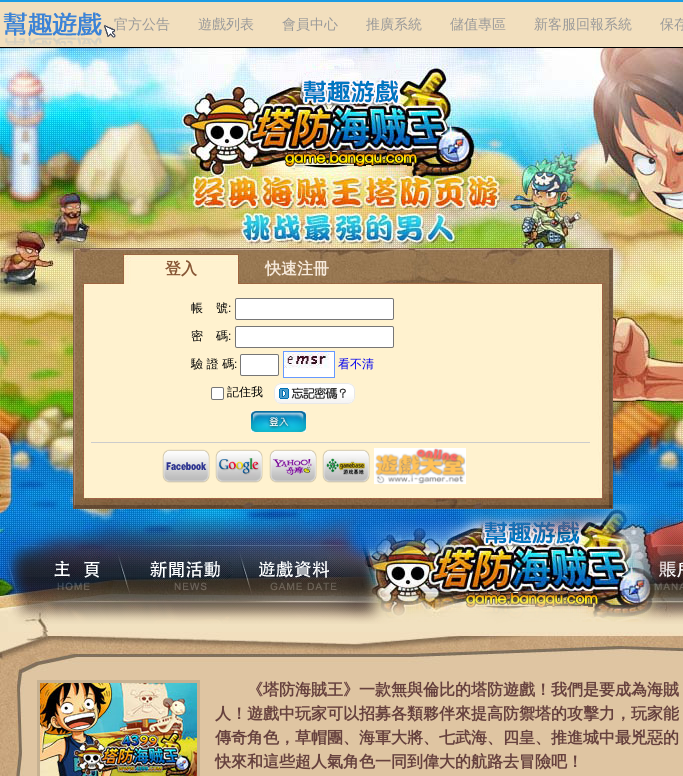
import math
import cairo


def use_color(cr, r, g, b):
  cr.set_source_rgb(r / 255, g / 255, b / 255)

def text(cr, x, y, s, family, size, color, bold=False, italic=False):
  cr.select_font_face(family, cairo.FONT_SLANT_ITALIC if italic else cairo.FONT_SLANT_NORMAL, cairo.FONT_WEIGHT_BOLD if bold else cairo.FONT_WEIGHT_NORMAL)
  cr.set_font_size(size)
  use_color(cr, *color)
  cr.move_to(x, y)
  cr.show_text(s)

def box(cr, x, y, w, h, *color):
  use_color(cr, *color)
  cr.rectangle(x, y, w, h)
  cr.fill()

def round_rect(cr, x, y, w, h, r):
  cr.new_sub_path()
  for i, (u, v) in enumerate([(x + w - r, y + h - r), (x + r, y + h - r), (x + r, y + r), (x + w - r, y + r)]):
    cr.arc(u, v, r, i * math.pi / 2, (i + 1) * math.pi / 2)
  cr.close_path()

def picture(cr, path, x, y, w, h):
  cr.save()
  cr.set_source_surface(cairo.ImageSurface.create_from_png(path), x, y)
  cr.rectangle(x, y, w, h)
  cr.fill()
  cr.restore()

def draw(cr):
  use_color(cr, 242, 223, 190)
  cr.paint()
  box(cr, 0, 0, 683, 2, 28, 156, 227)
  box(cr, 0, 47, 683, 1, 0, 0, 0)
  picture(cr, "img_01.png", 3, 12, 113, 34)
  picture(cr, "img_02.png", 0, 48, 683, 160)
  picture(cr, "img_03.png", 0, 208, 683, 193)
  picture(cr, "img_04.png", 73, 248, 540, 36)
  picture(cr, "img_05.png", 123, 254, 116, 30)
  picture(cr, "img_16.png", 0, 401, 683, 231)
  picture(cr, "img_06.png", 73, 284, 540, 210)
  use_color(cr, 255, 255, 255)
  round_rect(cr, 235.5, 298.5, 158, 21, 1.5)
  cr.fill_preserve()
  use_color(cr, 118, 118, 118)
  cr.set_line_width(1)
  cr.stroke()
  use_color(cr, 255, 255, 255)
  round_rect(cr, 235.5, 326.5, 158, 21, 1.5)
  cr.fill_preserve()
  use_color(cr, 118, 118, 118)
  cr.stroke()
  cr.rectangle(283.5, 351.5, 51, 26)
  use_color(cr, 102, 153, 255)
  cr.stroke()
  use_color(cr, 255, 255, 255)
  round_rect(cr, 240.5, 354.5, 38, 21, 1.5)
  cr.fill_preserve()
  use_color(cr, 118, 118, 118)
  cr.stroke()
  picture(cr, "img_07.png", 284, 352, 50, 25)
  use_color(cr, 255, 255, 255)
  round_rect(cr, 211.5, 387.5, 12, 12, 1.5)
  cr.fill_preserve()
  use_color(cr, 118, 118, 118)
  cr.stroke()
  picture(cr, "img_08.png", 273, 383, 83, 21)
  picture(cr, "img_09.png", 251, 411, 55, 21)
  box(cr, 91, 442, 499, 1, 204, 204, 204)
  picture(cr, "img_10.png", 162, 449, 48, 34)
  picture(cr, "img_11.png", 215, 449, 48, 34)
  picture(cr, "img_12.png", 269, 449, 48, 34)
  picture(cr, "img_13.png", 322, 449, 48, 34)
  picture(cr, "img_14.png", 374, 448, 92, 36)
  picture(cr, "img_17.png", 3, 504, 680, 120)
  picture(cr, "img_15.png", 73, 494, 540, 15)
  picture(cr, "img_18.png", 0, 632, 683, 144)
  cr.rectangle(38.5, 681.5, 160, 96)
  use_color(cr, 198, 177, 146)
  cr.set_line_width(3)
  cr.stroke()
  picture(cr, "img_19.png", 40, 683, 157, 93)
  text(cr, 114, 29, "官方公告", "WenQuanYi Zen Hei Medium", 14, (153, 153, 153))
  text(cr, 198, 29, "遊戲列表", "WenQuanYi Zen Hei Medium", 14, (153, 153, 153))
  text(cr, 282, 29, "會員中心", "WenQuanYi Zen Hei Medium", 14, (153, 153, 153))
  text(cr, 366, 29, "推廣系統", "WenQuanYi Zen Hei Medium", 14, (153, 153, 153))
  text(cr, 450, 29, "儲值專區", "WenQuanYi Zen Hei Medium", 14, (153, 153, 153))
  text(cr, 534, 29, "新客服回報系統", "WenQuanYi Zen Hei Medium", 14, (153, 153, 153))
  text(cr, 660, 29, "保存", "WenQuanYi Zen Hei Medium", 14, (153, 153, 153))
  text(cr, 165, 274, "登入", "WenQuanYi Zen Hei", 16, (135, 86, 53), bold=True)
  text(cr, 265, 274, "快速注冊", "WenQuanYi Zen Hei", 16, (246, 233, 218), bold=True)
  text(cr, 191, 312, "帳", "WenQuanYi Zen Hei Medium", 12, (0, 0, 0))
  text(cr, 216, 312, "號", "WenQuanYi Zen Hei Medium", 12, (0, 0, 0))
  text(cr, 228, 312, ":", "Liberation Sans", 12, (0, 0, 0))
  text(cr, 191, 340, "密", "WenQuanYi Zen Hei Medium", 12, (0, 0, 0))
  text(cr, 216, 340, "碼", "WenQuanYi Zen Hei Medium", 12, (0, 0, 0))
  text(cr, 228, 340, ":", "Liberation Sans", 12, (0, 0, 0))
  text(cr, 191, 368, "驗 證 碼", "WenQuanYi Zen Hei Medium", 12, (0, 0, 0))
  text(cr, 234, 368, ":", "Liberation Sans", 12, (0, 0, 0))
  text(cr, 338, 368, "看不清", "WenQuanYi Zen Hei Medium", 12, (0, 0, 238))
  text(cr, 227, 396, "記住我", "WenQuanYi Zen Hei Medium", 12, (0, 0, 0))
  text(cr, 247, 695, "《塔防海賊王》一款無與倫比的塔防遊戲！我們是要成為海賊", "WenQuanYi Zen Hei", 16, (102, 65, 62), bold=True)
  text(cr, 215, 719, "人！遊戲中玩家可以招募各類夥伴來提高防禦塔的攻擊力，玩家能", "WenQuanYi Zen Hei", 16, (102, 65, 62), bold=True)
  text(cr, 215, 743, "傳奇角色，草帽團、海軍大將、七武海、四皇、推進城中最兇惡的", "WenQuanYi Zen Hei", 16, (102, 65, 62), bold=True)
  text(cr, 215, 767, "快來和這些超人氣角色一同到偉大的航路去冒險吧！", "WenQuanYi Zen Hei", 16, (102, 65, 62), bold=True)


surface = cairo.ImageSurface(cairo.FORMAT_RGB24, 683, 776)
cr = cairo.Context(surface)
options = cairo.FontOptions()
options.set_hint_metrics(cairo.HINT_METRICS_OFF)
options.set_hint_style(cairo.HINT_STYLE_NONE)
cr.set_font_options(options)
cr.set_miter_limit(4)
draw(cr)
surface.write_to_png("out.png")
